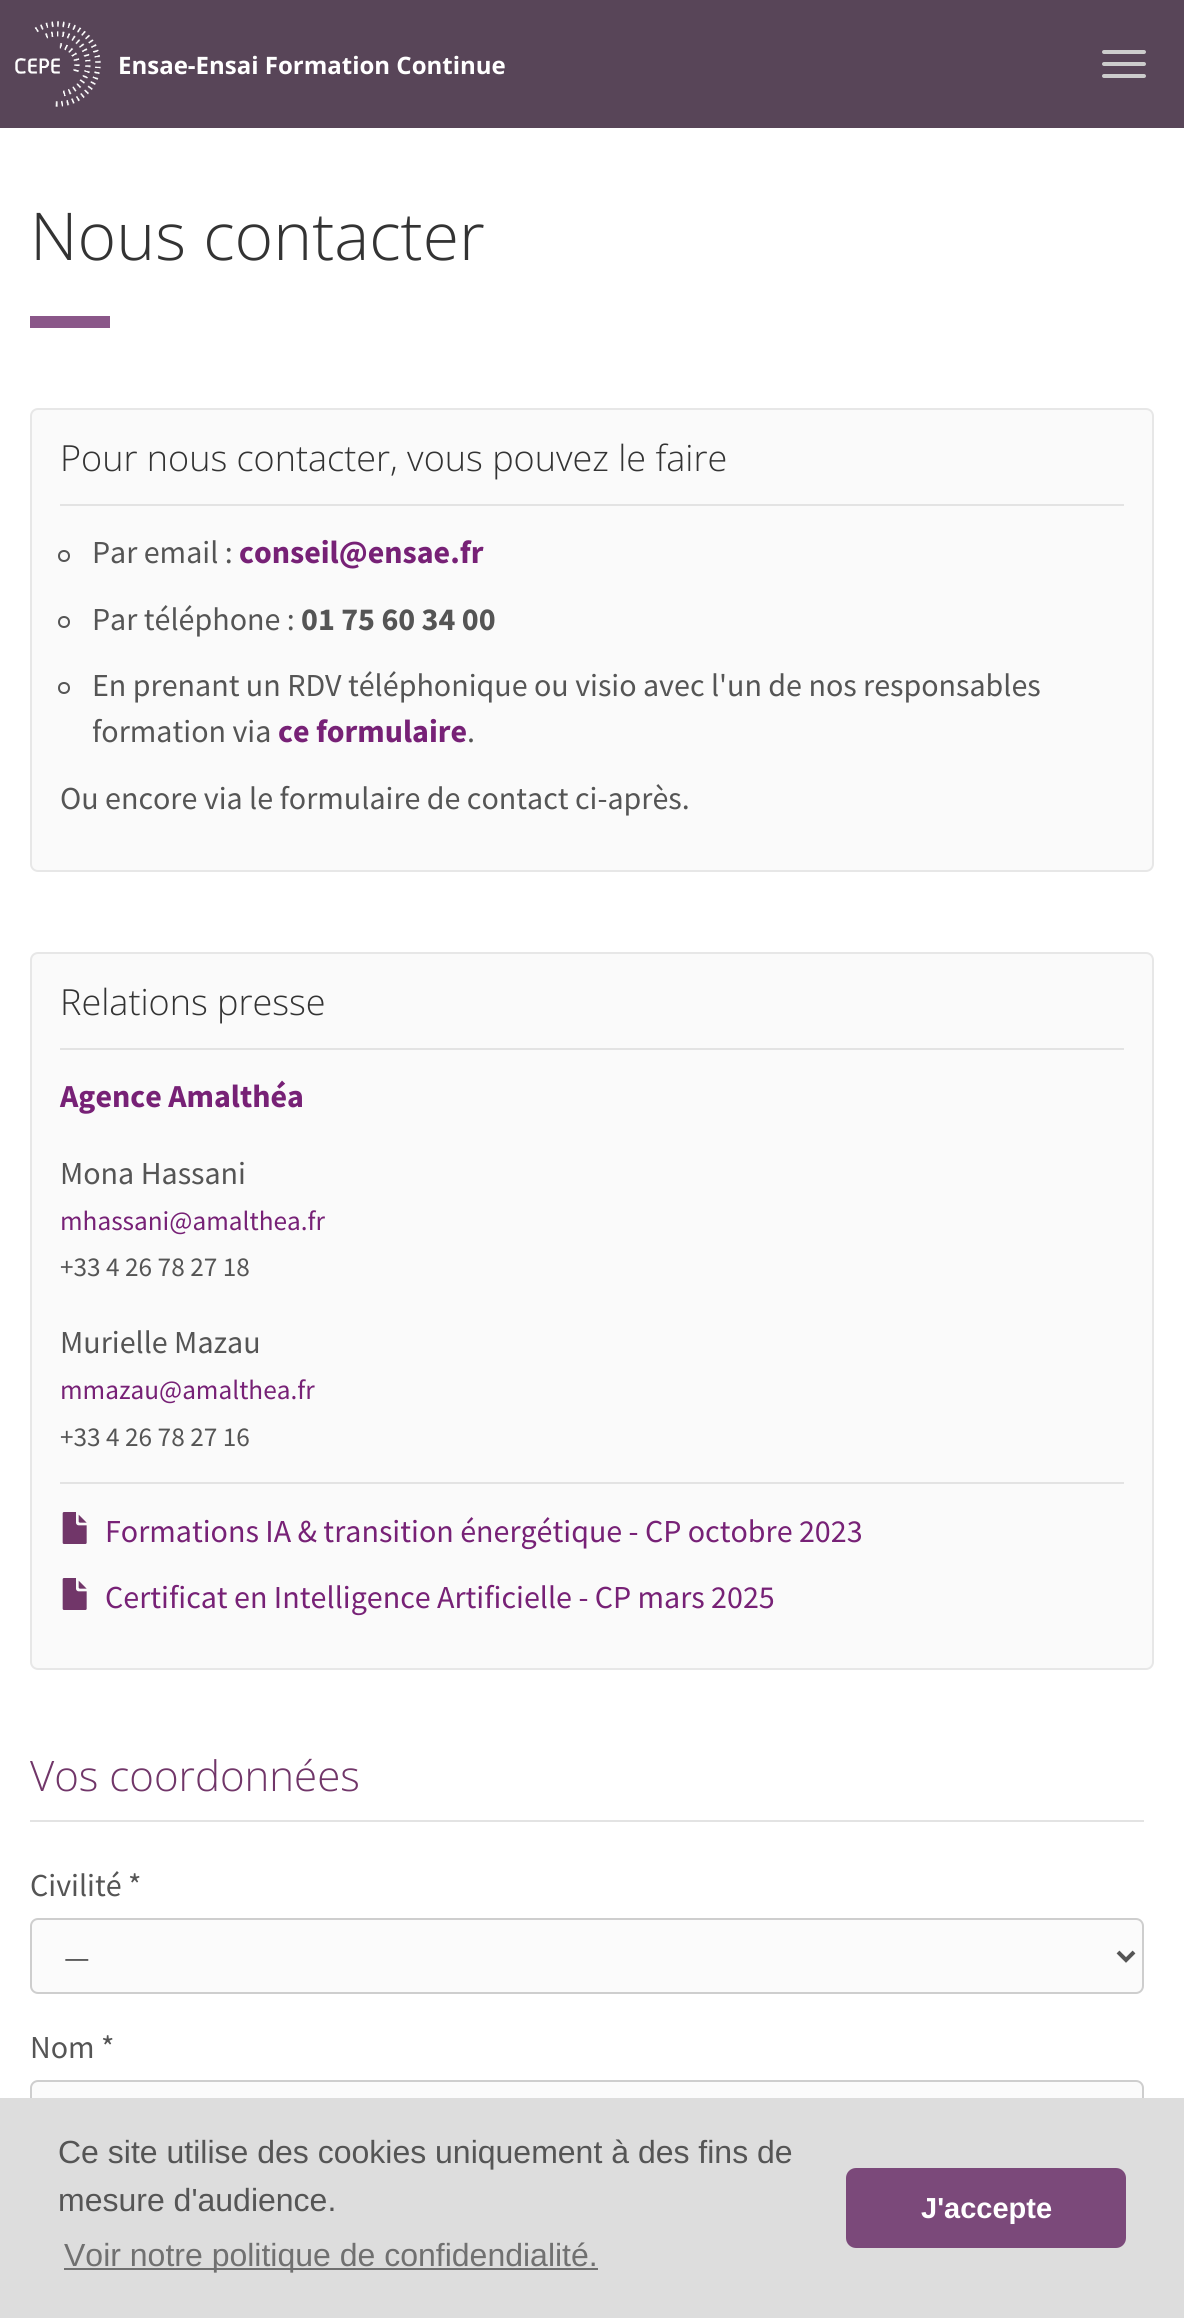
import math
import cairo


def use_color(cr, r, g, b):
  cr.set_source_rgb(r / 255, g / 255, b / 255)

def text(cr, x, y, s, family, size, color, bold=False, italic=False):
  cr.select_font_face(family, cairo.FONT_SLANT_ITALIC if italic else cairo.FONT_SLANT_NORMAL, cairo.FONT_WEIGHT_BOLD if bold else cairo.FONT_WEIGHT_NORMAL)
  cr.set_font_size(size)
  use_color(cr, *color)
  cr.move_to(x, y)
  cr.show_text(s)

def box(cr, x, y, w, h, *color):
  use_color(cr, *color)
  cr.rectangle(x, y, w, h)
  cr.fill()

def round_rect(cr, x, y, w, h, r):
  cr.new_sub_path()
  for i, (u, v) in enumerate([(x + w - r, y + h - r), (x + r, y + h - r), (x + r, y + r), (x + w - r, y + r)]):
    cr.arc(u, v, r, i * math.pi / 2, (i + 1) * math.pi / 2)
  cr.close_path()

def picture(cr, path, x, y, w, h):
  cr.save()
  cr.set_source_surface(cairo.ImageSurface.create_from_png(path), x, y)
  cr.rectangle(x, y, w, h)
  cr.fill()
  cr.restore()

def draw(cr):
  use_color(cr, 255, 255, 255)
  cr.paint()
  box(cr, 0, 0, 1184, 128, 88, 69, 88)
  picture(cr, "img_01.png", 15, 21, 86, 86)
  use_color(cr, 204, 204, 204)
  round_rect(cr, 1102, 50, 44, 4, 2)
  cr.fill()
  round_rect(cr, 1102, 62, 44, 4, 2)
  cr.fill()
  round_rect(cr, 1102, 74, 44, 4, 2)
  cr.fill()
  box(cr, 30, 316, 80, 12, 138, 87, 137)
  use_color(cr, 250, 250, 250)
  round_rect(cr, 31, 409, 1122, 462, 7)
  cr.fill_preserve()
  use_color(cr, 231, 231, 231)
  cr.stroke()
  box(cr, 60, 504, 1064, 2, 227, 227, 227)
  cr.arc(64, 556, 5, 0, 2 * math.pi)
  use_color(cr, 85, 85, 85)
  cr.stroke()
  cr.arc(64, 622, 5, 0, 2 * math.pi)
  cr.stroke()
  cr.arc(64, 688, 5, 0, 2 * math.pi)
  cr.stroke()
  use_color(cr, 250, 250, 250)
  round_rect(cr, 31, 953, 1122, 716, 7)
  cr.fill_preserve()
  use_color(cr, 231, 231, 231)
  cr.stroke()
  box(cr, 60, 1048, 1064, 2, 227, 227, 227)
  box(cr, 60, 1482, 1064, 2, 227, 227, 227)
  picture(cr, "img_02.png", 62, 1512, 25, 32)
  picture(cr, "img_02.png", 62, 1578, 25, 32)
  box(cr, 30, 1820, 1114, 2, 227, 227, 227)
  use_color(cr, 251, 251, 251)
  round_rect(cr, 31, 1919, 1112, 74, 7)
  cr.fill_preserve()
  use_color(cr, 206, 206, 206)
  cr.stroke()
  cr.new_path()
  cr.move_to(1118, 1952)
  cr.line_to(1126, 1960)
  cr.line_to(1134, 1952)
  use_color(cr, 85, 85, 85)
  cr.set_line_width(4)
  cr.stroke()
  use_color(cr, 251, 251, 251)
  round_rect(cr, 31, 2081, 1112, 74, 7)
  cr.fill_preserve()
  use_color(cr, 206, 206, 206)
  cr.set_line_width(2)
  cr.stroke()
  box(cr, 0, 2098, 1184, 220, 221, 221, 221)
  box(cr, 64, 2268, 534, 2, 112, 112, 112)
  use_color(cr, 123, 73, 122)
  round_rect(cr, 846, 2168, 280, 80, 10)
  cr.fill()
  text(cr, 118, 74, "Ensae-Ensai Formation Continue", "Open Sans", 24, (255, 255, 255), bold=True)
  text(cr, 30, 260, "Nous contacter", "Open Sans Light", 66, (51, 51, 51))
  text(cr, 60, 471, "Pour nous contacter, vous pouvez le faire", "Open Sans Light", 36, (51, 51, 51))
  text(cr, 92, 563, "Par email :", "Source Sans Pro", 32, (85, 85, 85))
  text(cr, 239, 563, "conseil@ensae.fr", "Source Sans Pro", 32, (119, 33, 118), bold=True)
  text(cr, 92, 630, "Par téléphone :", "Source Sans Pro", 32, (85, 85, 85))
  text(cr, 301, 630, "01 75 60 34 00", "Source Sans Pro", 32, (85, 85, 85), bold=True)
  text(cr, 92, 696, "En prenant un RDV téléphonique ou visio avec l'un de nos responsables", "Source Sans Pro", 32, (85, 85, 85))
  text(cr, 92, 742, "formation via", "Source Sans Pro", 32, (85, 85, 85))
  text(cr, 278, 742, "ce formulaire", "Source Sans Pro", 32, (119, 33, 118), bold=True)
  text(cr, 467, 742, ".", "Source Sans Pro", 32, (85, 85, 85))
  text(cr, 60, 809, "Ou encore via le formulaire de contact ci-après.", "Source Sans Pro", 32, (85, 85, 85))
  text(cr, 60, 1015, "Relations presse", "Open Sans Light", 36, (51, 51, 51))
  text(cr, 60, 1107, "Agence Amalthéa", "Source Sans Pro", 32, (119, 33, 118), bold=True)
  text(cr, 60, 1184, "Mona Hassani", "Source Sans Pro", 32, (85, 85, 85))
  text(cr, 60, 1230, "mhassani@amalthea.fr", "Source Sans Pro", 27.25, (119, 33, 118))
  text(cr, 60, 1276, "+33 4 26 78 27 18", "Source Sans Pro", 27.25, (85, 85, 85))
  text(cr, 60, 1353, "Murielle Mazau", "Source Sans Pro", 32, (85, 85, 85))
  text(cr, 60, 1399, "mmazau@amalthea.fr", "Source Sans Pro", 27.25, (119, 33, 118))
  text(cr, 60, 1446, "+33 4 26 78 27 16", "Source Sans Pro", 27.25, (85, 85, 85))
  text(cr, 105, 1542, "Formations IA & transition énergétique - CP octobre 2023", "Source Sans Pro", 32, (119, 33, 118))
  text(cr, 105, 1608, "Certificat en Intelligence Artificielle - CP mars 2025", "Source Sans Pro", 32, (119, 33, 118))
  text(cr, 30, 1791, "Vos coordonnées", "Open Sans Light", 42, (113, 54, 105))
  text(cr, 30, 1896, "Civilité *", "Source Sans Pro", 32, (85, 85, 85))
  text(cr, 64, 1968, "—", "Source Sans Pro", 32, (85, 85, 85))
  text(cr, 30, 2058, "Nom *", "Source Sans Pro", 32, (85, 85, 85))
  text(cr, 58, 2163, "Ce site utilise des cookies uniquement à des fins de", "Liberation Sans", 32, (85, 85, 85))
  text(cr, 58, 2211, "mesure d'audience.", "Liberation Sans", 32, (85, 85, 85))
  text(cr, 64, 2266, "Voir notre politique de confidendialité.", "Liberation Sans", 32, (112, 112, 112))
  text(cr, 921, 2218, "J'accepte", "Liberation Sans", 29, (255, 255, 255), bold=True)


surface = cairo.ImageSurface(cairo.FORMAT_RGB24, 1184, 2318)
cr = cairo.Context(surface)
options = cairo.FontOptions()
options.set_hint_metrics(cairo.HINT_METRICS_OFF)
options.set_hint_style(cairo.HINT_STYLE_NONE)
cr.set_font_options(options)
cr.set_miter_limit(4)
draw(cr)
surface.write_to_png("out.png")
